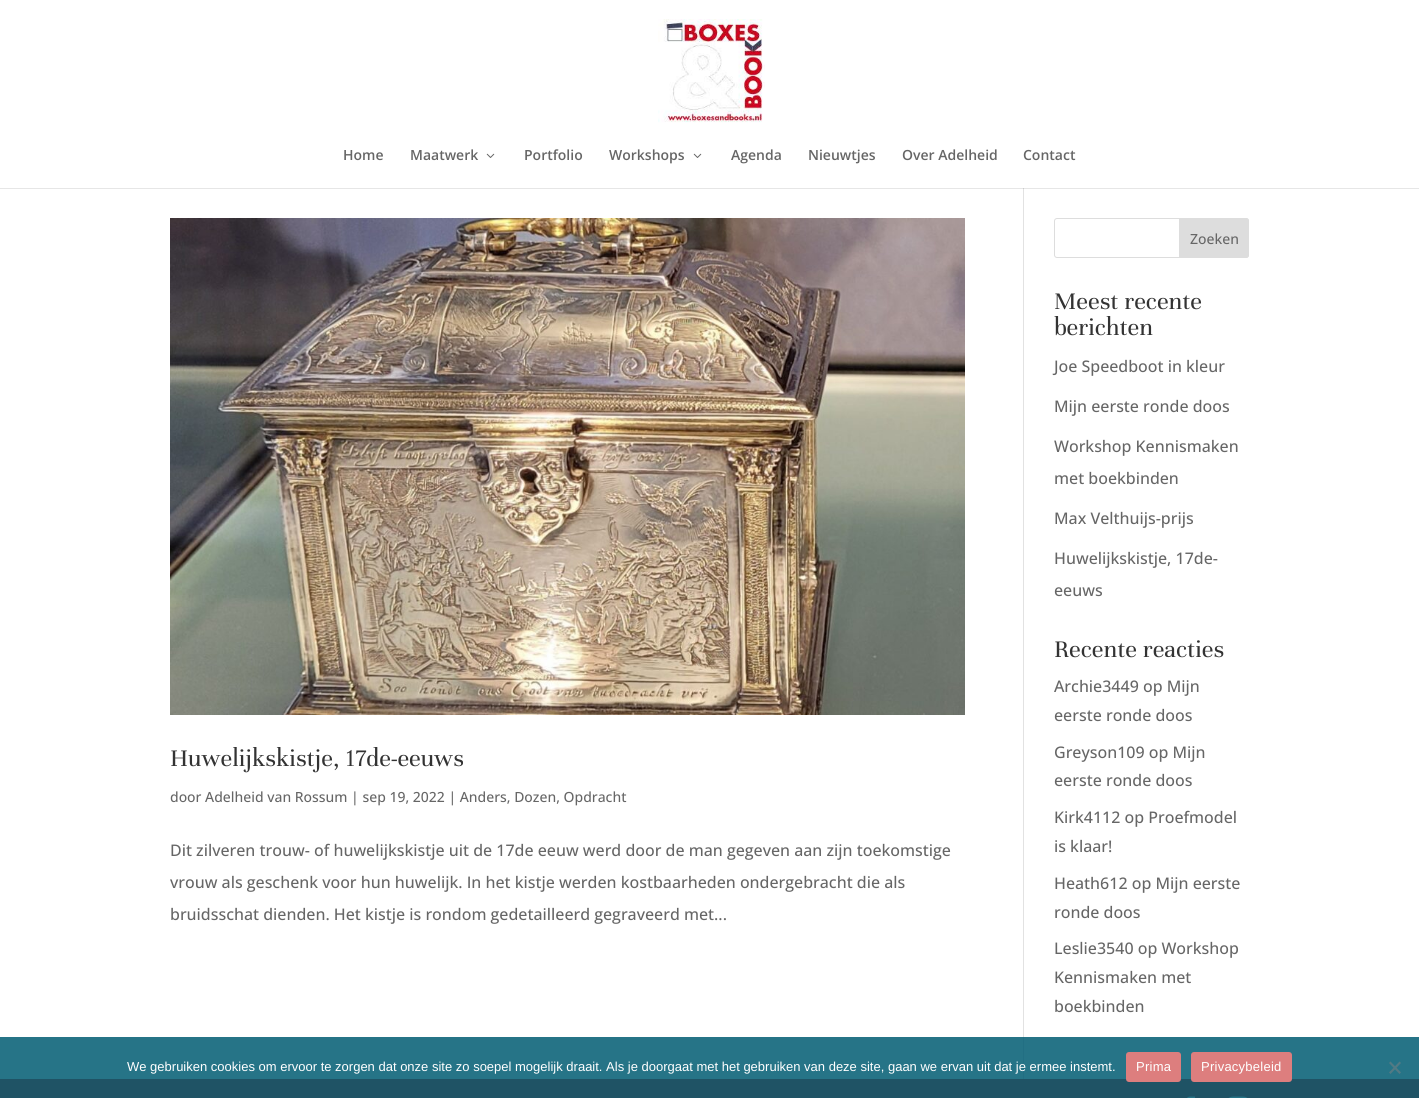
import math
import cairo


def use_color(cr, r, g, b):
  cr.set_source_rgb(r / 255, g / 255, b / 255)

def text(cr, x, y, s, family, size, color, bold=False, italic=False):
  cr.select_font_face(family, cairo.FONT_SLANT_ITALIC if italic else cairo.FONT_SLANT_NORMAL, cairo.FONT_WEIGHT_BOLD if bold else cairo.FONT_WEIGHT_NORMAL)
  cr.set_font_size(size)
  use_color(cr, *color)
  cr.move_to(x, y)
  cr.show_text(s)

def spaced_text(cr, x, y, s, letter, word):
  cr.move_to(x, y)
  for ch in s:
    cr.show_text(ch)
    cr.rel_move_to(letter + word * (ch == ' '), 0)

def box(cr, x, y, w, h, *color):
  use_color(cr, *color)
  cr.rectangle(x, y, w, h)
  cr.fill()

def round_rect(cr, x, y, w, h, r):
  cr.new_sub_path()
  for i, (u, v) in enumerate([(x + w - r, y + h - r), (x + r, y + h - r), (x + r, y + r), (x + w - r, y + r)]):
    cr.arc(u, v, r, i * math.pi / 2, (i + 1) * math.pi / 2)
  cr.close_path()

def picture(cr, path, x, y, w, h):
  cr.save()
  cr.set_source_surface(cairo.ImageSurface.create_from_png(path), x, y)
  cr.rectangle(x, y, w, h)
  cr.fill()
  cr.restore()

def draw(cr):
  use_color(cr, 255, 255, 255)
  cr.paint()
  box(cr, 0, 1037, 1419, 42, 38, 116, 135)
  box(cr, 0, 188, 1419, 1, 230, 230, 230)
  picture(cr, "img_01.png", 658, 19, 107, 104)
  picture(cr, "img_02.png", 486, 153, 9, 5)
  picture(cr, "img_02.png", 693, 153, 9, 5)
  box(cr, 1023, 189, 1, 848, 226, 226, 226)
  box(cr, 1023, 1037, 1, 42, 34, 111, 131)
  box(cr, 1023, 188, 1, 1, 203, 203, 203)
  picture(cr, "img_03.png", 170, 218, 795, 497)
  round_rect(cr, 1054.5, 218.5, 194, 39, 2.5)
  use_color(cr, 221, 221, 221)
  cr.set_line_width(1)
  cr.stroke()
  cr.new_path()
  cr.move_to(1179.5, 218.5)
  cr.line_to(1246, 218.5)
  cr.curve_to(1247.5, 218.5, 1248.5, 219.5, 1248.5, 221)
  cr.line_to(1248.5, 255)
  cr.curve_to(1248.5, 256.5, 1247.5, 257.5, 1246, 257.5)
  cr.line_to(1179.5, 257.5)
  cr.close_path()
  cr.fill_preserve()
  cr.stroke()
  box(cr, 0, 1079, 1419, 19, 31, 83, 101)
  picture(cr, "img_04.png", 1187, 1096, 9, 2)
  picture(cr, "img_05.png", 1228, 1096, 20, 2)
  use_color(cr, 221, 126, 126)
  round_rect(cr, 1126, 1052, 55, 30, 3)
  cr.fill()
  round_rect(cr, 1191, 1052, 101, 30, 3)
  cr.fill()
  use_color(cr, 83, 122, 132)
  cr.new_path()
  cr.move_to(1399.5, 1061.5)
  cr.line_to(1401, 1063)
  cr.line_to(1390.5, 1074)
  cr.line_to(1389, 1072.5)
  cr.close_path()
  cr.fill()
  cr.new_path()
  cr.move_to(1389, 1063)
  cr.line_to(1390.5, 1061.5)
  cr.line_to(1401, 1072.5)
  cr.line_to(1399.5, 1074)
  cr.close_path()
  cr.fill()
  text(cr, 343, 160, "Home", "Open Sans SemiBold", 14, (102, 102, 102))
  text(cr, 410, 160, "Maatwerk", "Open Sans SemiBold", 14, (102, 102, 102))
  text(cr, 524, 160, "Portfolio", "Open Sans SemiBold", 14, (102, 102, 102))
  text(cr, 609, 160, "Workshops", "Open Sans SemiBold", 14, (102, 102, 102))
  text(cr, 731, 160, "Agenda", "Open Sans SemiBold", 14, (102, 102, 102))
  text(cr, 808, 160, "Nieuwtjes", "Open Sans SemiBold", 14, (102, 102, 102))
  text(cr, 902, 160, "Over Adelheid", "Open Sans SemiBold", 14, (102, 102, 102))
  text(cr, 1023, 160, "Contact", "Open Sans SemiBold", 14, (102, 102, 102))
  text(cr, 170, 766, "Huwelijkskistje, 17de-eeuws", "Unna", 26, (51, 51, 51))
  text(cr, 170, 802, "door Adelheid van Rossum | sep 19, 2022 | Anders, Dozen, Opdracht", "Open Sans Medium", 14, (102, 102, 102))
  text(cr, 170, 856, "Dit zilveren trouw- of huwelijkskistje uit de 17de eeuw werd door de man gegeven aan zijn toekomstige", "Open Sans Medium", 16, (102, 102, 102))
  text(cr, 170, 888, "vrouw als geschenk voor hun huwelijk. In het kistje werden kostbaarheden ondergebracht die als", "Open Sans Medium", 16, (102, 102, 102))
  text(cr, 170, 920, "bruidsschat dienden. Het kistje is rondom gedetailleerd gegraveerd met...", "Open Sans Medium", 16, (102, 102, 102))
  text(cr, 1190, 244, "Zoeken", "Open Sans Medium", 14, (102, 102, 102))
  text(cr, 1054, 309, "Meest recente", "Unna", 26, (51, 51, 51))
  text(cr, 1054, 335, "berichten", "Unna", 26, (51, 51, 51))
  text(cr, 1054, 372, "Joe Speedboot in kleur", "Open Sans Medium", 16, (102, 102, 102))
  text(cr, 1054, 412, "Mijn eerste ronde doos", "Open Sans Medium", 16, (102, 102, 102))
  text(cr, 1054, 452, "Workshop Kennismaken", "Open Sans Medium", 16, (102, 102, 102))
  text(cr, 1054, 484, "met boekbinden", "Open Sans Medium", 16, (102, 102, 102))
  text(cr, 1054, 524, "Max Velthuijs-prijs", "Open Sans Medium", 16, (102, 102, 102))
  text(cr, 1054, 564, "Huwelijkskistje, 17de-", "Open Sans Medium", 16, (102, 102, 102))
  text(cr, 1054, 596, "eeuws", "Open Sans Medium", 16, (102, 102, 102))
  text(cr, 1054, 657, "Recente reacties", "Unna", 26, (51, 51, 51))
  text(cr, 1054, 692, "Archie3449 op Mijn", "Open Sans Medium", 16, (102, 102, 102))
  text(cr, 1054, 721, "eerste ronde doos", "Open Sans Medium", 16, (102, 102, 102))
  text(cr, 1054, 758, "Greyson109 op Mijn", "Open Sans Medium", 16, (102, 102, 102))
  text(cr, 1054, 786, "eerste ronde doos", "Open Sans Medium", 16, (102, 102, 102))
  text(cr, 1054, 823, "Kirk4112 op Proefmodel", "Open Sans Medium", 16, (102, 102, 102))
  text(cr, 1054, 852, "is klaar!", "Open Sans Medium", 16, (102, 102, 102))
  text(cr, 1054, 889, "Heath612 op Mijn eerste", "Open Sans Medium", 16, (102, 102, 102))
  text(cr, 1054, 918, "ronde doos", "Open Sans Medium", 16, (102, 102, 102))
  text(cr, 1054, 954, "Leslie3540 op Workshop", "Open Sans Medium", 16, (102, 102, 102))
  text(cr, 1054, 983, "Kennismaken met", "Open Sans Medium", 16, (102, 102, 102))
  text(cr, 1054, 1012, "boekbinden", "Open Sans Medium", 16, (102, 102, 102))
  text(cr, 127, 1071, "We gebruiken cookies om ervoor te zorgen dat onze site zo soepel mogelijk draait. Als je doorgaat met het gebruiken van deze site, gaan we ervan uit dat je ermee instemt.", "Liberation Sans", 13, (255, 255, 255))
  spaced_text(cr, 1136, 1071, "Prima", 0.25, 0)
  spaced_text(cr, 1201, 1071, "Privacybeleid", 0.25, 0)


surface = cairo.ImageSurface(cairo.FORMAT_RGB24, 1419, 1098)
cr = cairo.Context(surface)
options = cairo.FontOptions()
options.set_hint_metrics(cairo.HINT_METRICS_OFF)
options.set_hint_style(cairo.HINT_STYLE_NONE)
cr.set_font_options(options)
cr.set_miter_limit(4)
draw(cr)
surface.write_to_png("out.png")
